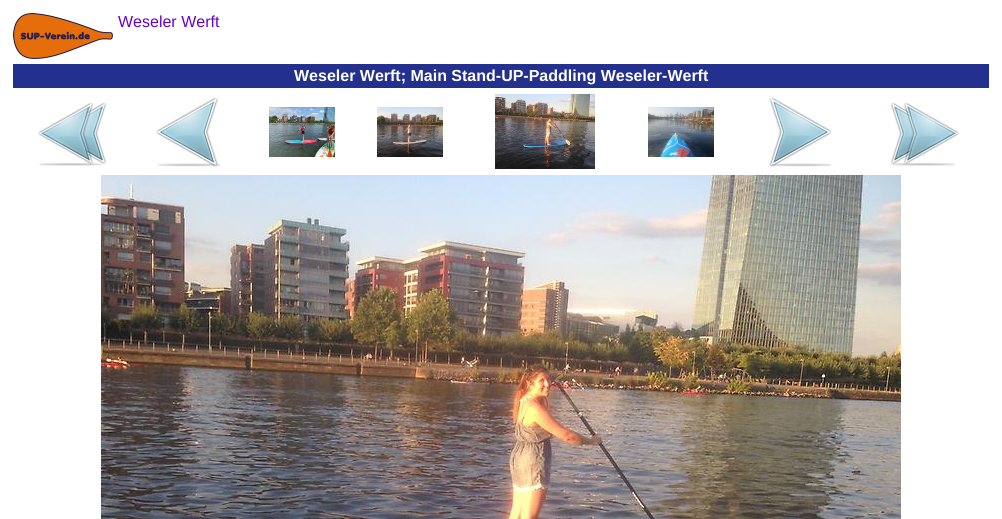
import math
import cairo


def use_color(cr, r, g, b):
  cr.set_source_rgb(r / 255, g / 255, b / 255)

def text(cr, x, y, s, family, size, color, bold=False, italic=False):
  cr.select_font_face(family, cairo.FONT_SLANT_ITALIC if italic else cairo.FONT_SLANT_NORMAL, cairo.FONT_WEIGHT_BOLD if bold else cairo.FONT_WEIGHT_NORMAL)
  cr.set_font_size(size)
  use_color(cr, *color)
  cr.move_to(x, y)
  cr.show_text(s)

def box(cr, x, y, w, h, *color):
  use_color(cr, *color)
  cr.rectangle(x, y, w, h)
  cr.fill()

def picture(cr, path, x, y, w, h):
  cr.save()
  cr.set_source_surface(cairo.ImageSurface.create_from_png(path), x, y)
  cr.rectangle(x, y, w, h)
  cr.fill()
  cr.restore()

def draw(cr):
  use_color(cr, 255, 255, 255)
  cr.paint()
  picture(cr, "img_01.png", 13, 13, 100, 46)
  box(cr, 13, 64, 976, 24, 35, 48, 142)
  picture(cr, "img_02.png", 38, 103, 69, 63)
  picture(cr, "img_03.png", 156, 98, 65, 69)
  picture(cr, "img_04.png", 269, 107, 66, 50)
  picture(cr, "img_05.png", 377, 107, 66, 50)
  picture(cr, "img_06.png", 495, 94, 100, 75)
  picture(cr, "img_07.png", 648, 107, 66, 50)
  picture(cr, "img_08.png", 769, 98, 63, 69)
  picture(cr, "img_09.png", 890, 103, 69, 63)
  picture(cr, "img_10.png", 101, 175, 800, 344)
  text(cr, 118, 27, "Weseler Werft", "Liberation Sans", 16, (102, 0, 204))
  text(cr, 294, 81, "Weseler Werft; Main Stand-UP-Paddling Weseler-Werft", "Liberation Sans", 16, (255, 255, 255), bold=True)


surface = cairo.ImageSurface(cairo.FORMAT_RGB24, 1002, 519)
cr = cairo.Context(surface)
options = cairo.FontOptions()
options.set_hint_metrics(cairo.HINT_METRICS_OFF)
options.set_hint_style(cairo.HINT_STYLE_NONE)
cr.set_font_options(options)
cr.set_miter_limit(4)
draw(cr)
surface.write_to_png("out.png")
